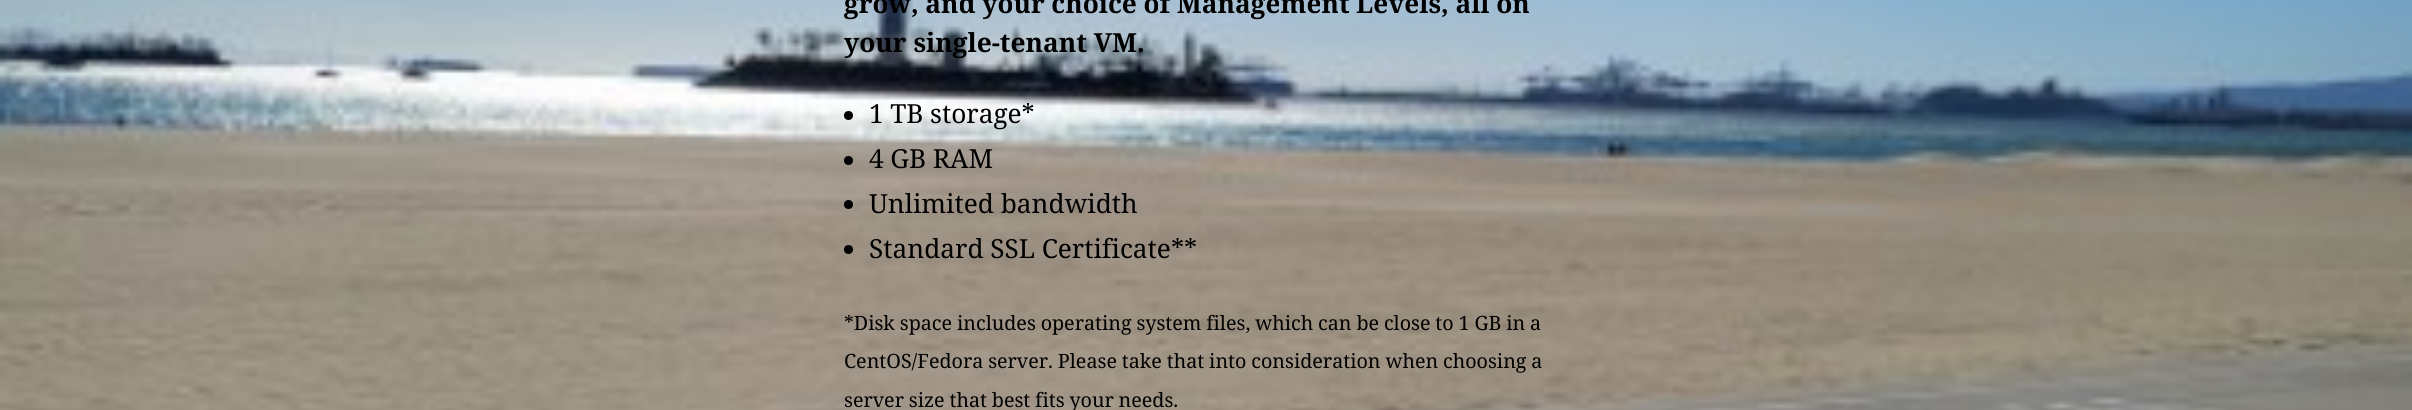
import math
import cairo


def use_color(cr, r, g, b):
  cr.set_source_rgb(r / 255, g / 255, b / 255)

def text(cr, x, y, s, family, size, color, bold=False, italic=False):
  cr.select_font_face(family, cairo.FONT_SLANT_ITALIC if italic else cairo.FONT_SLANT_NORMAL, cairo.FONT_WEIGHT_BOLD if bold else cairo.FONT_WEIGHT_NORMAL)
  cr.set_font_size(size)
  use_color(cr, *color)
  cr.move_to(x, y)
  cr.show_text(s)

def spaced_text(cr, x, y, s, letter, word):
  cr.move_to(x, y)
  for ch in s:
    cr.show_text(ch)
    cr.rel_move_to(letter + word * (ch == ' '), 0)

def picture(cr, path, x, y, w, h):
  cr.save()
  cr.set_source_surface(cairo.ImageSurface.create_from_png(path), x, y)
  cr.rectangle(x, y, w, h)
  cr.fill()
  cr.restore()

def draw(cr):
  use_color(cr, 255, 255, 255)
  cr.paint()
  picture(cr, "img_01.png", 0, 0, 2412, 410)
  use_color(cr, 0, 0, 0)
  cr.arc(848.5, 115.5, 4.5, 0, 2 * math.pi)
  cr.fill()
  cr.arc(848.5, 160.5, 4.5, 0, 2 * math.pi)
  cr.fill()
  cr.arc(848.5, 204.5, 4.5, 0, 2 * math.pi)
  cr.fill()
  cr.arc(848.5, 249.5, 4.5, 0, 2 * math.pi)
  cr.fill()
  cr.select_font_face("Noto Serif", cairo.FONT_SLANT_NORMAL, cairo.FONT_WEIGHT_BOLD)
  cr.set_font_size(26.25)
  spaced_text(cr, 844, 13, "grow, and your choice of Management Levels, all on", 0, -0.25)
  text(cr, 844, 52, "your single-tenant VM.", "Noto Serif", 26.25, (0, 0, 0), bold=True)
  cr.select_font_face("Noto Serif")
  spaced_text(cr, 869, 123, "1 TB storage*", 0, -0.25)
  spaced_text(cr, 869, 168, "4 GB RAM", 0, -0.25)
  text(cr, 869, 213, "Unlimited bandwidth", "Noto Serif", 26.25, (0, 0, 0))
  spaced_text(cr, 869, 258, "Standard SSL Certificate**", 0, -0.25)
  cr.set_font_size(19.7)
  spaced_text(cr, 844, 330, "*Disk space includes operating system files, which can be close to 1 GB in a", 0, -0.25)
  spaced_text(cr, 844, 368, "CentOS/Fedora server. Please take that into consideration when choosing a", 0, -0.25)
  spaced_text(cr, 844, 407, "server size that best fits your needs.", 0, -0.25)


surface = cairo.ImageSurface(cairo.FORMAT_RGB24, 2412, 410)
cr = cairo.Context(surface)
options = cairo.FontOptions()
options.set_hint_metrics(cairo.HINT_METRICS_OFF)
options.set_hint_style(cairo.HINT_STYLE_NONE)
cr.set_font_options(options)
cr.set_miter_limit(4)
draw(cr)
surface.write_to_png("out.png")
